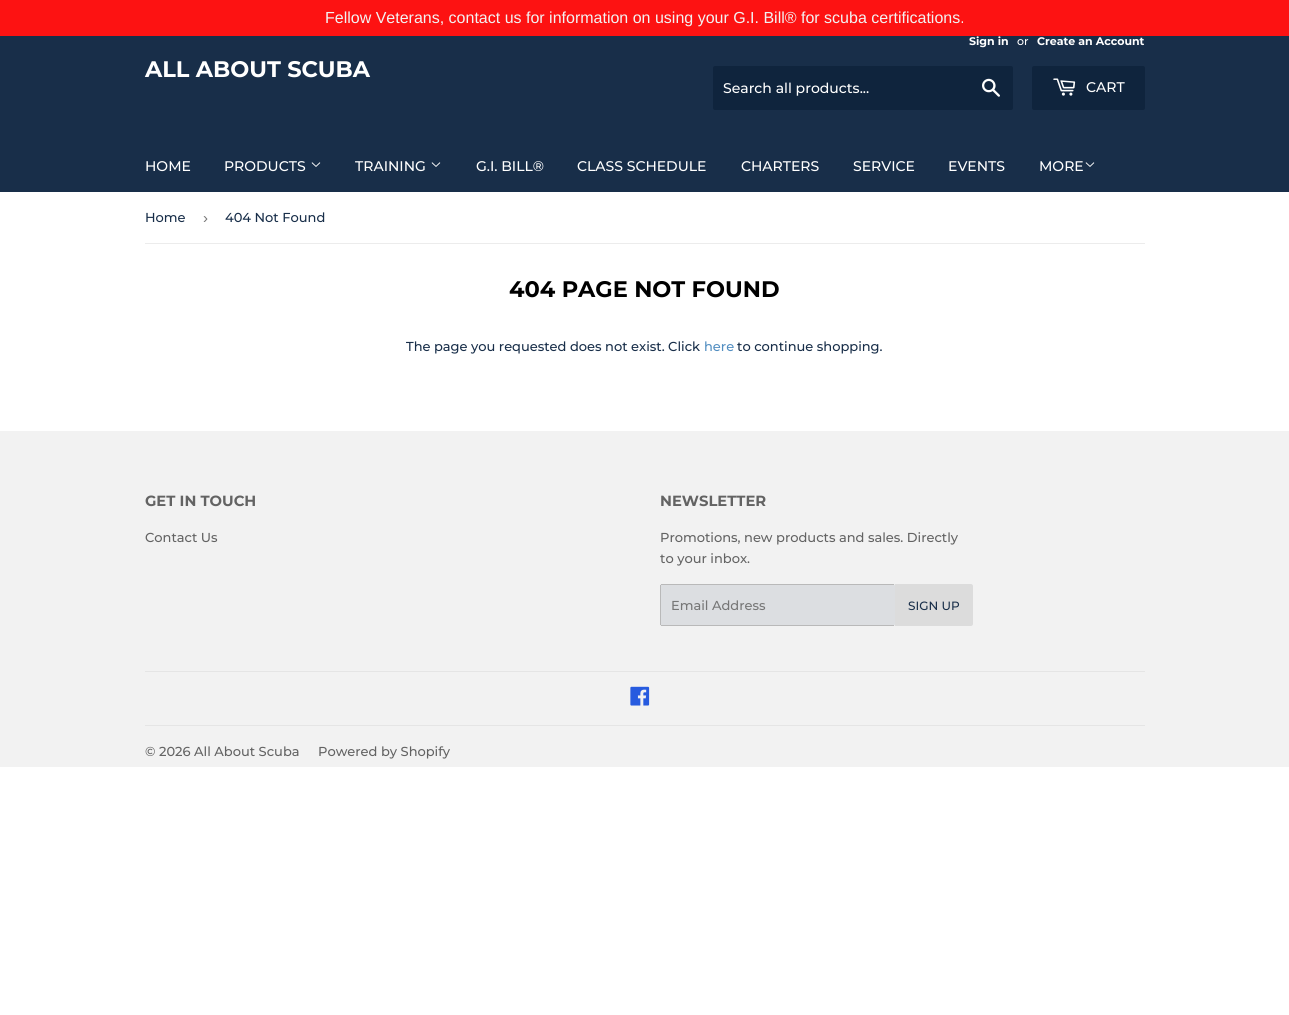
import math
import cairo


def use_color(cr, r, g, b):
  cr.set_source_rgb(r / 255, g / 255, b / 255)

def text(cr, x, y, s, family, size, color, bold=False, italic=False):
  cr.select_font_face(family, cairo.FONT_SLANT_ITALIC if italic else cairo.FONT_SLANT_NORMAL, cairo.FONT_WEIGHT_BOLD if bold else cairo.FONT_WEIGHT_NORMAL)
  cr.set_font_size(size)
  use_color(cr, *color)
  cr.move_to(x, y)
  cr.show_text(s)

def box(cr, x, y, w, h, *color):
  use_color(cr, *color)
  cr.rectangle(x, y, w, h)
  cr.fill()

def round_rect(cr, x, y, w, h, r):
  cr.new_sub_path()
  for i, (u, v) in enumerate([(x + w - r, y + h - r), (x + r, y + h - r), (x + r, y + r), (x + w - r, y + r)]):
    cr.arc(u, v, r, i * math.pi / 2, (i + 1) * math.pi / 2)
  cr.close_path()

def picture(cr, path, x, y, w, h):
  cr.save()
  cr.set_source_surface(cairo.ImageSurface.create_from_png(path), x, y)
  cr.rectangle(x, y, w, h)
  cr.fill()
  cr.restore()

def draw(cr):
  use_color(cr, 255, 255, 255)
  cr.paint()
  box(cr, 0, 0, 1289, 36, 253, 18, 18)
  box(cr, 0, 36, 1289, 156, 24, 46, 73)
  use_color(cr, 15, 36, 61)
  round_rect(cr, 713, 66, 300, 44, 2)
  cr.fill()
  picture(cr, "img_01.png", 982, 78, 18, 19)
  round_rect(cr, 1032, 66, 113, 44, 2)
  cr.fill()
  picture(cr, "img_02.png", 1053, 78, 23, 18)
  picture(cr, "img_03.png", 311, 162, 10, 5)
  picture(cr, "img_03.png", 431, 162, 10, 5)
  picture(cr, "img_03.png", 1085, 162, 10, 5)
  box(cr, 145, 243, 1000, 1, 236, 236, 236)
  box(cr, 0, 431, 1289, 336, 242, 242, 242)
  use_color(cr, 220, 222, 225)
  round_rect(cr, 660, 584, 235, 42, 2)
  cr.fill()
  box(cr, 661, 584, 233, 1, 185, 185, 185)
  box(cr, 661, 625, 233, 1, 185, 185, 185)
  box(cr, 660, 585, 1, 40, 185, 185, 185)
  use_color(cr, 220, 220, 220)
  cr.new_path()
  cr.move_to(895, 584)
  cr.line_to(971, 584)
  cr.curve_to(972, 584, 973, 585, 973, 586)
  cr.line_to(973, 624)
  cr.curve_to(973, 625, 972, 626, 971, 626)
  cr.line_to(895, 626)
  cr.close_path()
  cr.fill()
  box(cr, 145, 671, 1000, 1, 229, 229, 229)
  picture(cr, "img_04.png", 630, 686, 20, 20)
  box(cr, 145, 725, 1000, 1, 229, 229, 229)
  text(cr, 325, 23, "Fellow Veterans, contact us for information on using your G.I. Bill® for scuba certifications.", "Liberation Sans", 16, (242, 242, 242))
  text(cr, 145, 77, "ALL ABOUT SCUBA", "Montserrat", 22.5, (255, 255, 255), bold=True)
  text(cr, 969, 45, "Sign in", "Montserrat", 11, (255, 255, 255), bold=True)
  text(cr, 1017, 45, "or", "Montserrat Medium", 11, (255, 255, 255))
  text(cr, 1037, 45, "Create an Account", "Montserrat", 11, (255, 255, 255), bold=True)
  text(cr, 723, 93, "Search all products...", "Montserrat Medium", 14, (255, 255, 255))
  text(cr, 1086, 92, "CART", "Montserrat Medium", 14, (255, 255, 255))
  text(cr, 145, 171, "HOME", "Montserrat Medium", 14, (255, 255, 255))
  text(cr, 224, 171, "PRODUCTS", "Montserrat Medium", 14, (255, 255, 255))
  text(cr, 355, 171, "TRAINING", "Montserrat Medium", 14, (255, 255, 255))
  text(cr, 476, 171, "G.I. BILL®", "Montserrat Medium", 14, (255, 255, 255))
  text(cr, 577, 171, "CLASS SCHEDULE", "Montserrat Medium", 14, (255, 255, 255))
  text(cr, 741, 171, "CHARTERS", "Montserrat Medium", 14, (255, 255, 255))
  text(cr, 853, 171, "SERVICE", "Montserrat Medium", 14, (255, 255, 255))
  text(cr, 948, 171, "EVENTS", "Montserrat Medium", 14, (255, 255, 255))
  text(cr, 1039, 171, "MORE", "Montserrat Medium", 14, (255, 255, 255))
  text(cr, 145, 222, "Home", "Montserrat Medium", 13, (24, 46, 73))
  text(cr, 203, 223, "›", "Liberation Sans", 15, (118, 118, 118))
  text(cr, 225, 222, "404 Not Found", "Montserrat Medium", 13, (24, 46, 73))
  text(cr, 509, 297, "404 PAGE NOT FOUND", "Montserrat", 22.5, (0, 0, 0), bold=True)
  text(cr, 406, 351, "The page you requested does not exist. Click", "Montserrat Medium", 13, (24, 46, 73))
  text(cr, 704, 351, "here", "Montserrat Medium", 13, (82, 142, 193))
  text(cr, 737, 351, "to continue shopping.", "Montserrat Medium", 13, (24, 46, 73))
  text(cr, 145, 506, "GET IN TOUCH", "Montserrat", 14.75, (99, 99, 99), bold=True)
  text(cr, 145, 542, "Contact Us", "Montserrat Medium", 13, (99, 99, 99))
  text(cr, 660, 506, "NEWSLETTER", "Montserrat", 14.75, (99, 99, 99), bold=True)
  text(cr, 660, 542, "Promotions, new products and sales. Directly", "Montserrat Medium", 13, (99, 99, 99))
  text(cr, 660, 563, "to your inbox.", "Montserrat Medium", 13, (99, 99, 99))
  text(cr, 671, 610, "Email Address", "Montserrat Medium", 13, (118, 118, 118))
  text(cr, 908, 610, "SIGN UP", "Montserrat Medium", 12, (24, 46, 73))
  text(cr, 145, 756, "© 2026 All About Scuba", "Montserrat Medium", 13, (99, 99, 99))
  text(cr, 318, 756, "Powered by Shopify", "Montserrat Medium", 13, (99, 99, 99))


surface = cairo.ImageSurface(cairo.FORMAT_RGB24, 1289, 1015)
cr = cairo.Context(surface)
options = cairo.FontOptions()
options.set_hint_metrics(cairo.HINT_METRICS_OFF)
options.set_hint_style(cairo.HINT_STYLE_NONE)
cr.set_font_options(options)
cr.set_miter_limit(4)
draw(cr)
surface.write_to_png("out.png")
